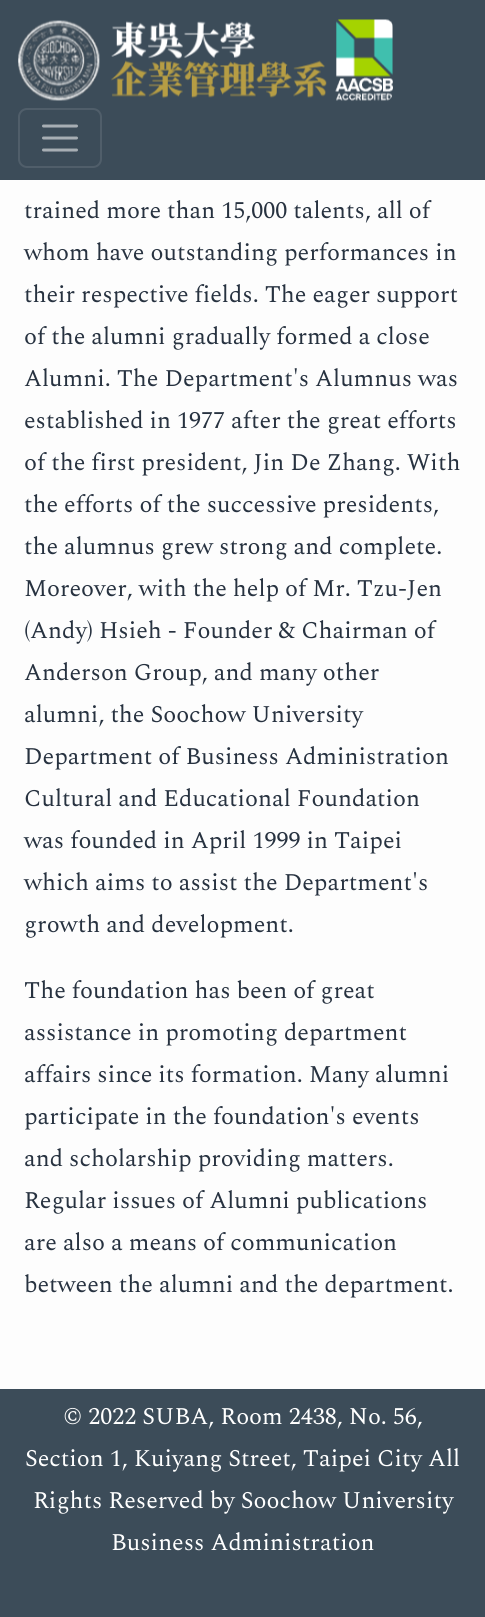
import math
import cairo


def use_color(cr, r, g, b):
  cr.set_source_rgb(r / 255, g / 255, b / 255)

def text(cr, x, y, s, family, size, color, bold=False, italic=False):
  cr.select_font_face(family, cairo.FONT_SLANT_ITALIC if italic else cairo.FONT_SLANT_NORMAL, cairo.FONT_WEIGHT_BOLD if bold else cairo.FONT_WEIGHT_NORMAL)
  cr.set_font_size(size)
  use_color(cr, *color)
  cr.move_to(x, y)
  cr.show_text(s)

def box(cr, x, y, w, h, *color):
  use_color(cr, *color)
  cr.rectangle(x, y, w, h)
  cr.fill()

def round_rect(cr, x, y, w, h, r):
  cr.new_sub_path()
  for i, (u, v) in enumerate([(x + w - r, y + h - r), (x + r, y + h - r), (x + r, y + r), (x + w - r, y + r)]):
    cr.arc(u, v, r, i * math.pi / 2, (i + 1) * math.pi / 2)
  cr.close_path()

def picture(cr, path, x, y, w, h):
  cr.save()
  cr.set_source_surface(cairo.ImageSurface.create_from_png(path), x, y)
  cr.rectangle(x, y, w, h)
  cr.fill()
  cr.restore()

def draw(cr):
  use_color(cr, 253, 253, 253)
  cr.paint()
  box(cr, 0, 0, 485, 180, 60, 76, 89)
  picture(cr, "img_01.png", 18, 19, 375, 82)
  round_rect(cr, 19, 109, 82, 58, 8)
  use_color(cr, 80, 94, 106)
  cr.stroke()
  cr.new_path()
  cr.move_to(43.5, 126)
  cr.line_to(76.5, 126)
  cr.move_to(43.5, 138)
  cr.line_to(76.5, 138)
  cr.move_to(43.5, 150)
  cr.line_to(76.5, 150)
  use_color(cr, 167, 174, 180)
  cr.set_line_width(3)
  cr.set_line_cap(cairo.LINE_CAP_ROUND)
  cr.stroke()
  box(cr, 0, 1389, 485, 228, 60, 76, 89)
  text(cr, 24, 218, "trained more than 15,000 talents, all of", "Spectral", 24, (39, 50, 64))
  text(cr, 24, 260, "whom have outstanding performances in", "Spectral", 24, (39, 50, 64))
  text(cr, 24, 302, "their respective fields. The eager support", "Spectral", 24, (39, 50, 64))
  text(cr, 24, 344, "of the alumni gradually formed a close", "Spectral", 24, (39, 50, 64))
  text(cr, 24, 386, "Alumni. The Department's Alumnus was", "Spectral", 24, (39, 50, 64))
  text(cr, 24, 428, "established in 1977 after the great efforts", "Spectral", 24, (39, 50, 64))
  text(cr, 24, 470, "of the first president, Jin De Zhang. With", "Spectral", 24, (39, 50, 64))
  text(cr, 24, 512, "the efforts of the successive presidents,", "Spectral", 24, (39, 50, 64))
  text(cr, 24, 554, "the alumnus grew strong and complete.", "Spectral", 24, (39, 50, 64))
  text(cr, 24, 596, "Moreover, with the help of Mr. Tzu-Jen", "Spectral", 24, (39, 50, 64))
  text(cr, 24, 638, "(Andy) Hsieh - Founder & Chairman of", "Spectral", 24, (39, 50, 64))
  text(cr, 24, 680, "Anderson Group, and many other", "Spectral", 24, (39, 50, 64))
  text(cr, 24, 722, "alumni, the Soochow University", "Spectral", 24, (39, 50, 64))
  text(cr, 24, 764, "Department of Business Administration", "Spectral", 24, (39, 50, 64))
  text(cr, 24, 806, "Cultural and Educational Foundation", "Spectral", 24, (39, 50, 64))
  text(cr, 24, 848, "was founded in April 1999 in Taipei", "Spectral", 24, (39, 50, 64))
  text(cr, 24, 890, "which aims to assist the Department's", "Spectral", 24, (39, 50, 64))
  text(cr, 24, 932, "growth and development.", "Spectral", 24, (39, 50, 64))
  text(cr, 24, 998, "The foundation has been of great", "Spectral", 24, (39, 50, 64))
  text(cr, 24, 1040, "assistance in promoting department", "Spectral", 24, (39, 50, 64))
  text(cr, 24, 1082, "affairs since its formation. Many alumni", "Spectral", 24, (39, 50, 64))
  text(cr, 24, 1124, "participate in the foundation's events", "Spectral", 24, (39, 50, 64))
  text(cr, 24, 1166, "and scholarship providing matters.", "Spectral", 24, (39, 50, 64))
  text(cr, 24, 1208, "Regular issues of Alumni publications", "Spectral", 24, (39, 50, 64))
  text(cr, 24, 1250, "are also a means of communication", "Spectral", 24, (39, 50, 64))
  text(cr, 24, 1292, "between the alumni and the department.", "Spectral", 24, (39, 50, 64))
  text(cr, 63, 1424, "© 2022 SUBA, Room 2438, No. 56,", "Spectral", 24, (255, 255, 255))
  text(cr, 25, 1466, "Section 1, Kuiyang Street, Taipei City All", "Spectral", 24, (255, 255, 255))
  text(cr, 33, 1508, "Rights Reserved by Soochow University", "Spectral", 24, (255, 255, 255))
  text(cr, 111, 1550, "Business Administration", "Spectral", 24, (255, 255, 255))


surface = cairo.ImageSurface(cairo.FORMAT_RGB24, 485, 1617)
cr = cairo.Context(surface)
options = cairo.FontOptions()
options.set_hint_metrics(cairo.HINT_METRICS_OFF)
options.set_hint_style(cairo.HINT_STYLE_NONE)
cr.set_font_options(options)
cr.set_miter_limit(4)
draw(cr)
surface.write_to_png("out.png")
